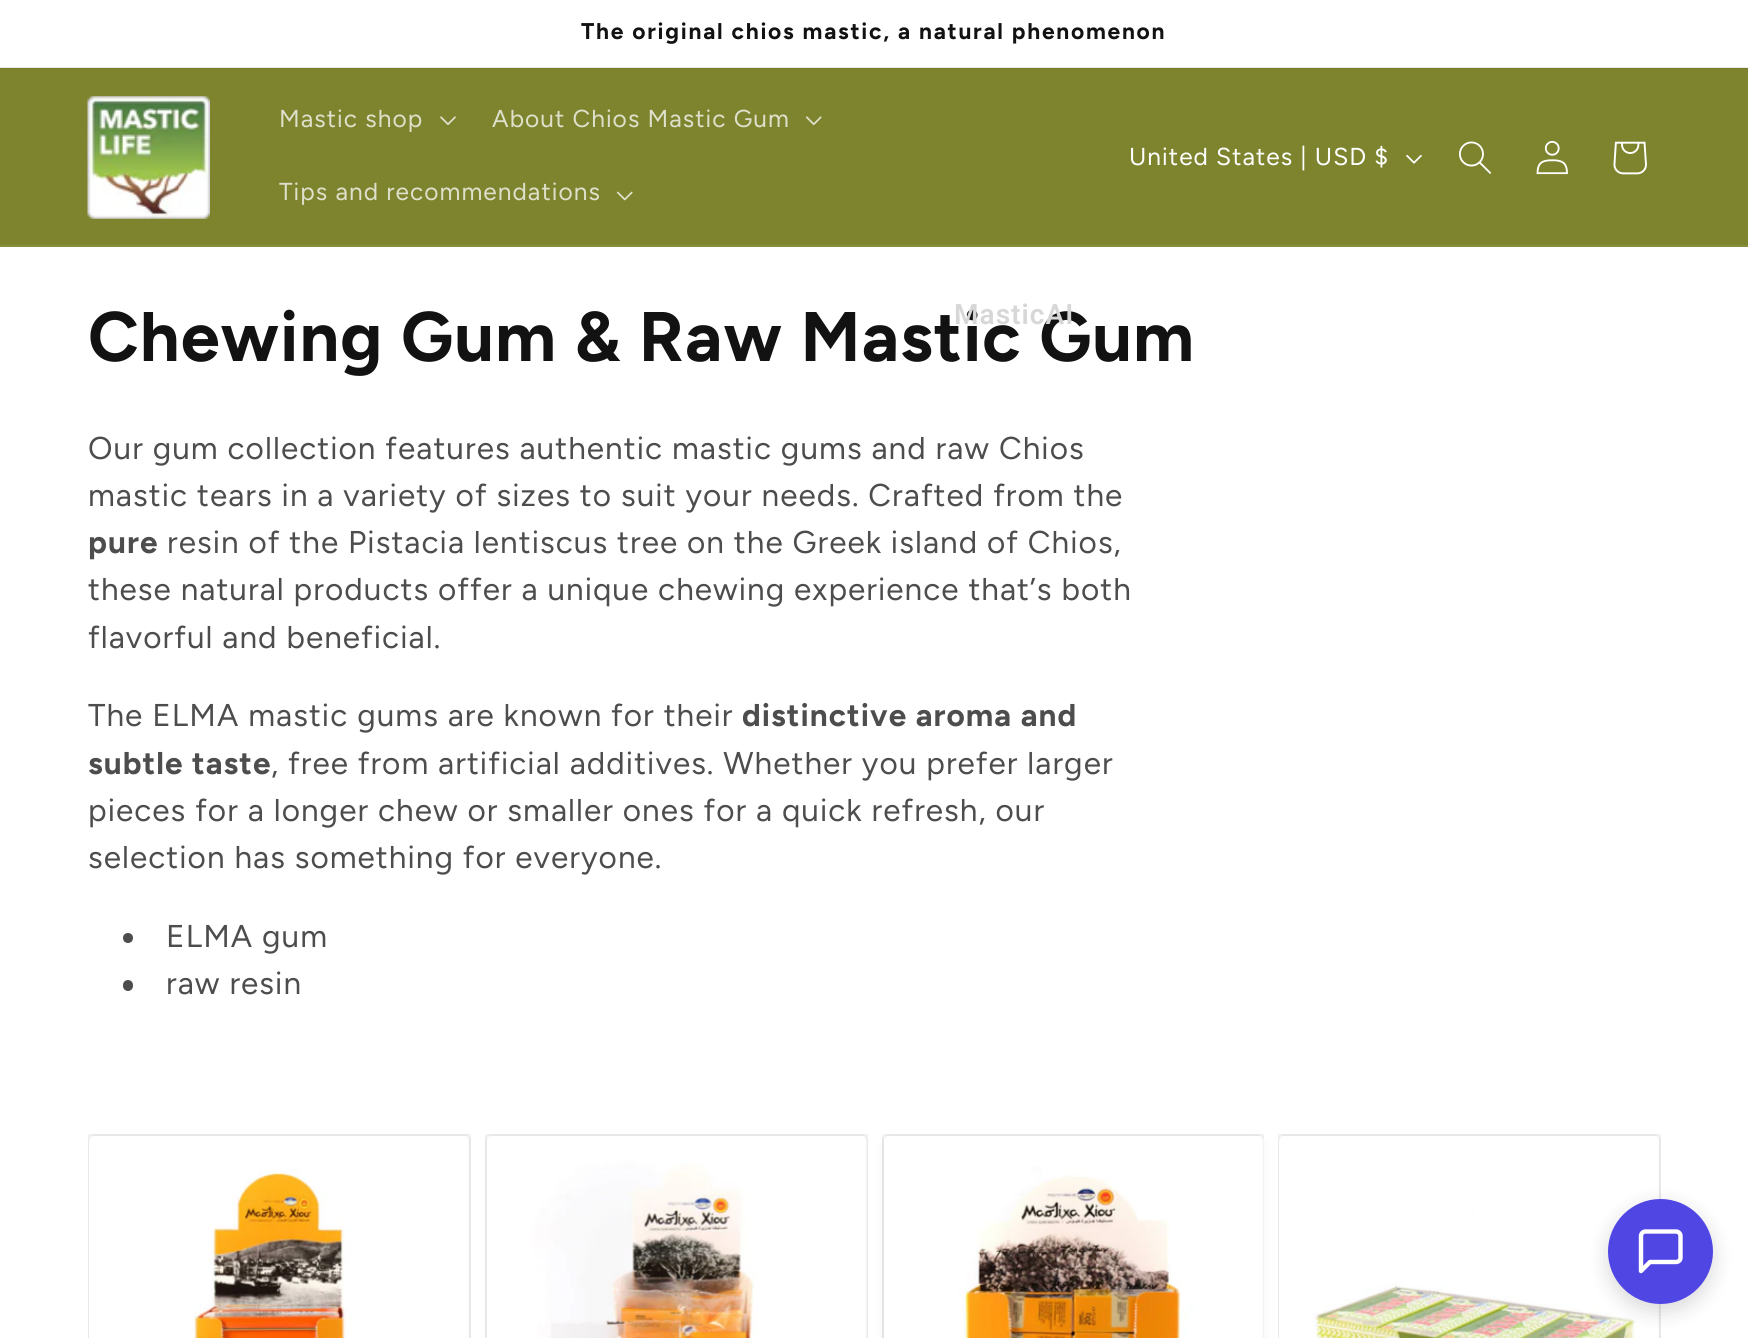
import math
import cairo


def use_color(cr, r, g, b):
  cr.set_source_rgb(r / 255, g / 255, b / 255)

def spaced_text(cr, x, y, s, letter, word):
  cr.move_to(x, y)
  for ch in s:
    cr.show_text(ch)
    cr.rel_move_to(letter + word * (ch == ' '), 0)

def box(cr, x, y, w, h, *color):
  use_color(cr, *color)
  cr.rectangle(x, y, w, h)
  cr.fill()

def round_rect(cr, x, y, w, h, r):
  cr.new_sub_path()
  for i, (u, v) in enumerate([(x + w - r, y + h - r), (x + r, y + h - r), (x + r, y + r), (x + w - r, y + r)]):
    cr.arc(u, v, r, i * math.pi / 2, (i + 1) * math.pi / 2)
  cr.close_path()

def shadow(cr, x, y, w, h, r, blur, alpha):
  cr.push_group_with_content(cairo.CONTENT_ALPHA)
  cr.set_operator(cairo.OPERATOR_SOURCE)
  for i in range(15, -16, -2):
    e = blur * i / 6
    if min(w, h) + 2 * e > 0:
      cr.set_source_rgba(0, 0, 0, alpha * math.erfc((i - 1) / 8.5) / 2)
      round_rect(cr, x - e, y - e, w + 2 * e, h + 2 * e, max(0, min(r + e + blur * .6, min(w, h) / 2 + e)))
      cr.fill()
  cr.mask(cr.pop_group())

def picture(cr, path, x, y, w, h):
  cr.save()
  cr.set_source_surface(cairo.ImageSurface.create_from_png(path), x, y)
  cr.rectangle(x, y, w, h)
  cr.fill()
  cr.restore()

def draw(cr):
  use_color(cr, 255, 255, 255)
  cr.paint()
  box(cr, 0, 67, 1748, 1, 236, 236, 236)
  box(cr, 0, 69, 1748, 176, 125, 132, 45)
  box(cr, 0, 68, 1748, 1, 116, 123, 43)
  box(cr, 0, 245, 1748, 2, 135, 142, 62)
  picture(cr, "img_01.png", 87, 96, 123, 123)
  picture(cr, "img_02.png", 440, 116, 16, 9)
  picture(cr, "img_03.png", 805, 116, 17, 10)
  picture(cr, "img_04.png", 616, 191, 17, 10)
  picture(cr, "img_05.png", 1406, 155, 16, 9)
  picture(cr, "img_06.png", 1459, 141, 32, 33)
  picture(cr, "img_07.png", 1536, 140, 32, 35)
  picture(cr, "img_08.png", 1613, 141, 34, 34)
  use_color(cr, 243, 243, 243)
  round_rect(cr, 485, 1134, 383, 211, 7)
  cr.fill()
  cr.rectangle(486, 1135, 381, 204)
  cr.set_source_rgba(0.071, 0.071, 0.071, 0.05)
  cr.stroke()
  use_color(cr, 243, 243, 243)
  round_rect(cr, 882, 1134, 382, 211, 7)
  cr.fill()
  cr.rectangle(883, 1135, 380, 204)
  cr.set_source_rgba(0.071, 0.071, 0.071, 0.05)
  cr.stroke()
  use_color(cr, 18, 18, 18)
  shadow(cr, 882, 1141, 382, 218, 7, 4.5, 0.05)
  use_color(cr, 243, 243, 243)
  round_rect(cr, 1278, 1134, 383, 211, 7)
  cr.fill()
  cr.rectangle(1279, 1135, 381, 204)
  cr.set_source_rgba(0.071, 0.071, 0.071, 0.05)
  cr.stroke()
  picture(cr, "img_12.png", 1279, 1136, 380, 202)
  use_color(cr, 0, 0, 0)
  shadow(cr, 1608, 1206, 105, 105, 52.5, 10.5, 0.15)
  use_color(cr, 80, 70, 228)
  cr.arc(1660.5, 1251.5, 52.5, 0, 2 * math.pi)
  cr.fill()
  cr.new_path()
  cr.move_to(1680.5, 1258)
  cr.curve_to(1680.5, 1260, 1678.5, 1262, 1676, 1262)
  cr.line_to(1650, 1262)
  cr.line_to(1641, 1271)
  cr.line_to(1641, 1236)
  cr.curve_to(1641, 1233.5, 1643, 1231.5, 1645.5, 1231.5)
  cr.line_to(1676, 1231.5)
  cr.curve_to(1678.5, 1231.5, 1680.5, 1233.5, 1680.5, 1236)
  cr.close_path()
  use_color(cr, 255, 255, 255)
  cr.set_line_width(4.4)
  cr.set_line_cap(cairo.LINE_CAP_ROUND)
  cr.set_line_join(cairo.LINE_JOIN_ROUND)
  cr.stroke()
  use_color(cr, 77, 77, 77)
  cr.arc(128, 938, 5, 0, 2 * math.pi)
  cr.fill()
  round_rect(cr, 123, 980, 10, 11, 5)
  cr.fill()
  use_color(cr, 243, 243, 243)
  round_rect(cr, 88, 1134, 383, 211, 7)
  cr.fill()
  cr.rectangle(89, 1135, 381, 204)
  cr.set_source_rgba(0.071, 0.071, 0.071, 0.05)
  cr.set_line_width(2)
  cr.set_line_cap(cairo.LINE_CAP_BUTT)
  cr.set_line_join(cairo.LINE_JOIN_MITER)
  cr.stroke()
  picture(cr, "img_09.png", 89, 1136, 380, 202)
  picture(cr, "img_10.png", 487, 1136, 380, 202)
  picture(cr, "img_11.png", 884, 1136, 380, 202)
  cr.select_font_face("Figtree", cairo.FONT_SLANT_NORMAL, cairo.FONT_WEIGHT_BOLD)
  cr.set_font_size(22.75)
  use_color(cr, 18, 18, 18)
  spaced_text(cr, 581, 39, "The original chios mastic, a natural phenomenon", 1.75, 0)
  cr.select_font_face("Figtree")
  cr.set_font_size(24.5)
  use_color(cr, 223, 224, 203)
  spaced_text(cr, 279, 127, "Mastic shop", 1.05, 0)
  spaced_text(cr, 492, 127, "About Chios Mastic Gum", 1.05, 0)
  spaced_text(cr, 279, 200, "Tips and recommendations", 1.05, 0)
  use_color(cr, 255, 255, 255)
  spaced_text(cr, 1129, 165, "United States | USD $", 1.05, 0)
  cr.select_font_face("Figtree", cairo.FONT_SLANT_NORMAL, cairo.FONT_WEIGHT_BOLD)
  cr.set_font_size(70)
  use_color(cr, 18, 18, 18)
  spaced_text(cr, 88, 361, "Chewing Gum & Raw Mastic Gum", 1.05, 0)
  cr.select_font_face("Roboto SemiBold")
  cr.set_font_size(28)
  use_color(cr, 215, 215, 215)
  spaced_text(cr, 954, 324, "MasticAI", 1.05, 0)
  cr.select_font_face("Figtree")
  cr.set_font_size(31.5)
  use_color(cr, 77, 77, 77)
  spaced_text(cr, 88, 459, "Our gum collection features authentic mastic gums and raw Chios", 1.05, 0)
  spaced_text(cr, 88, 506, "mastic tears in a variety of sizes to suit your needs. Crafted from the", 1.05, 0)
  cr.select_font_face("Figtree", cairo.FONT_SLANT_NORMAL, cairo.FONT_WEIGHT_BOLD)
  spaced_text(cr, 88, 553, "pure", 1.05, 0)
  cr.select_font_face("Figtree")
  spaced_text(cr, 167, 553, "resin of the Pistacia lentiscus tree on the Greek island of Chios,", 1.05, 0)
  spaced_text(cr, 88, 600, "these natural products offer a unique chewing experience that’s both", 1.05, 0)
  spaced_text(cr, 88, 648, "flavorful and beneficial.", 1.05, 0)
  spaced_text(cr, 88, 726, "The ELMA mastic gums are known for their", 1.05, 0)
  cr.select_font_face("Figtree", cairo.FONT_SLANT_NORMAL, cairo.FONT_WEIGHT_BOLD)
  spaced_text(cr, 742, 726, "distinctive aroma and", 1.05, 0)
  spaced_text(cr, 88, 774, "subtle taste", 1.05, 0)
  cr.select_font_face("Figtree")
  spaced_text(cr, 271, 774, ", free from artificial additives. Whether you prefer larger", 1.05, 0)
  spaced_text(cr, 88, 821, "pieces for a longer chew or smaller ones for a quick refresh, our", 1.05, 0)
  spaced_text(cr, 88, 868, "selection has something for everyone.", 1.05, 0)
  spaced_text(cr, 166, 947, "ELMA gum", 1.05, 0)
  spaced_text(cr, 166, 994, "raw resin", 1.05, 0)


surface = cairo.ImageSurface(cairo.FORMAT_RGB24, 1748, 1338)
cr = cairo.Context(surface)
options = cairo.FontOptions()
options.set_hint_metrics(cairo.HINT_METRICS_OFF)
options.set_hint_style(cairo.HINT_STYLE_NONE)
cr.set_font_options(options)
cr.set_miter_limit(4)
draw(cr)
surface.write_to_png("out.png")
